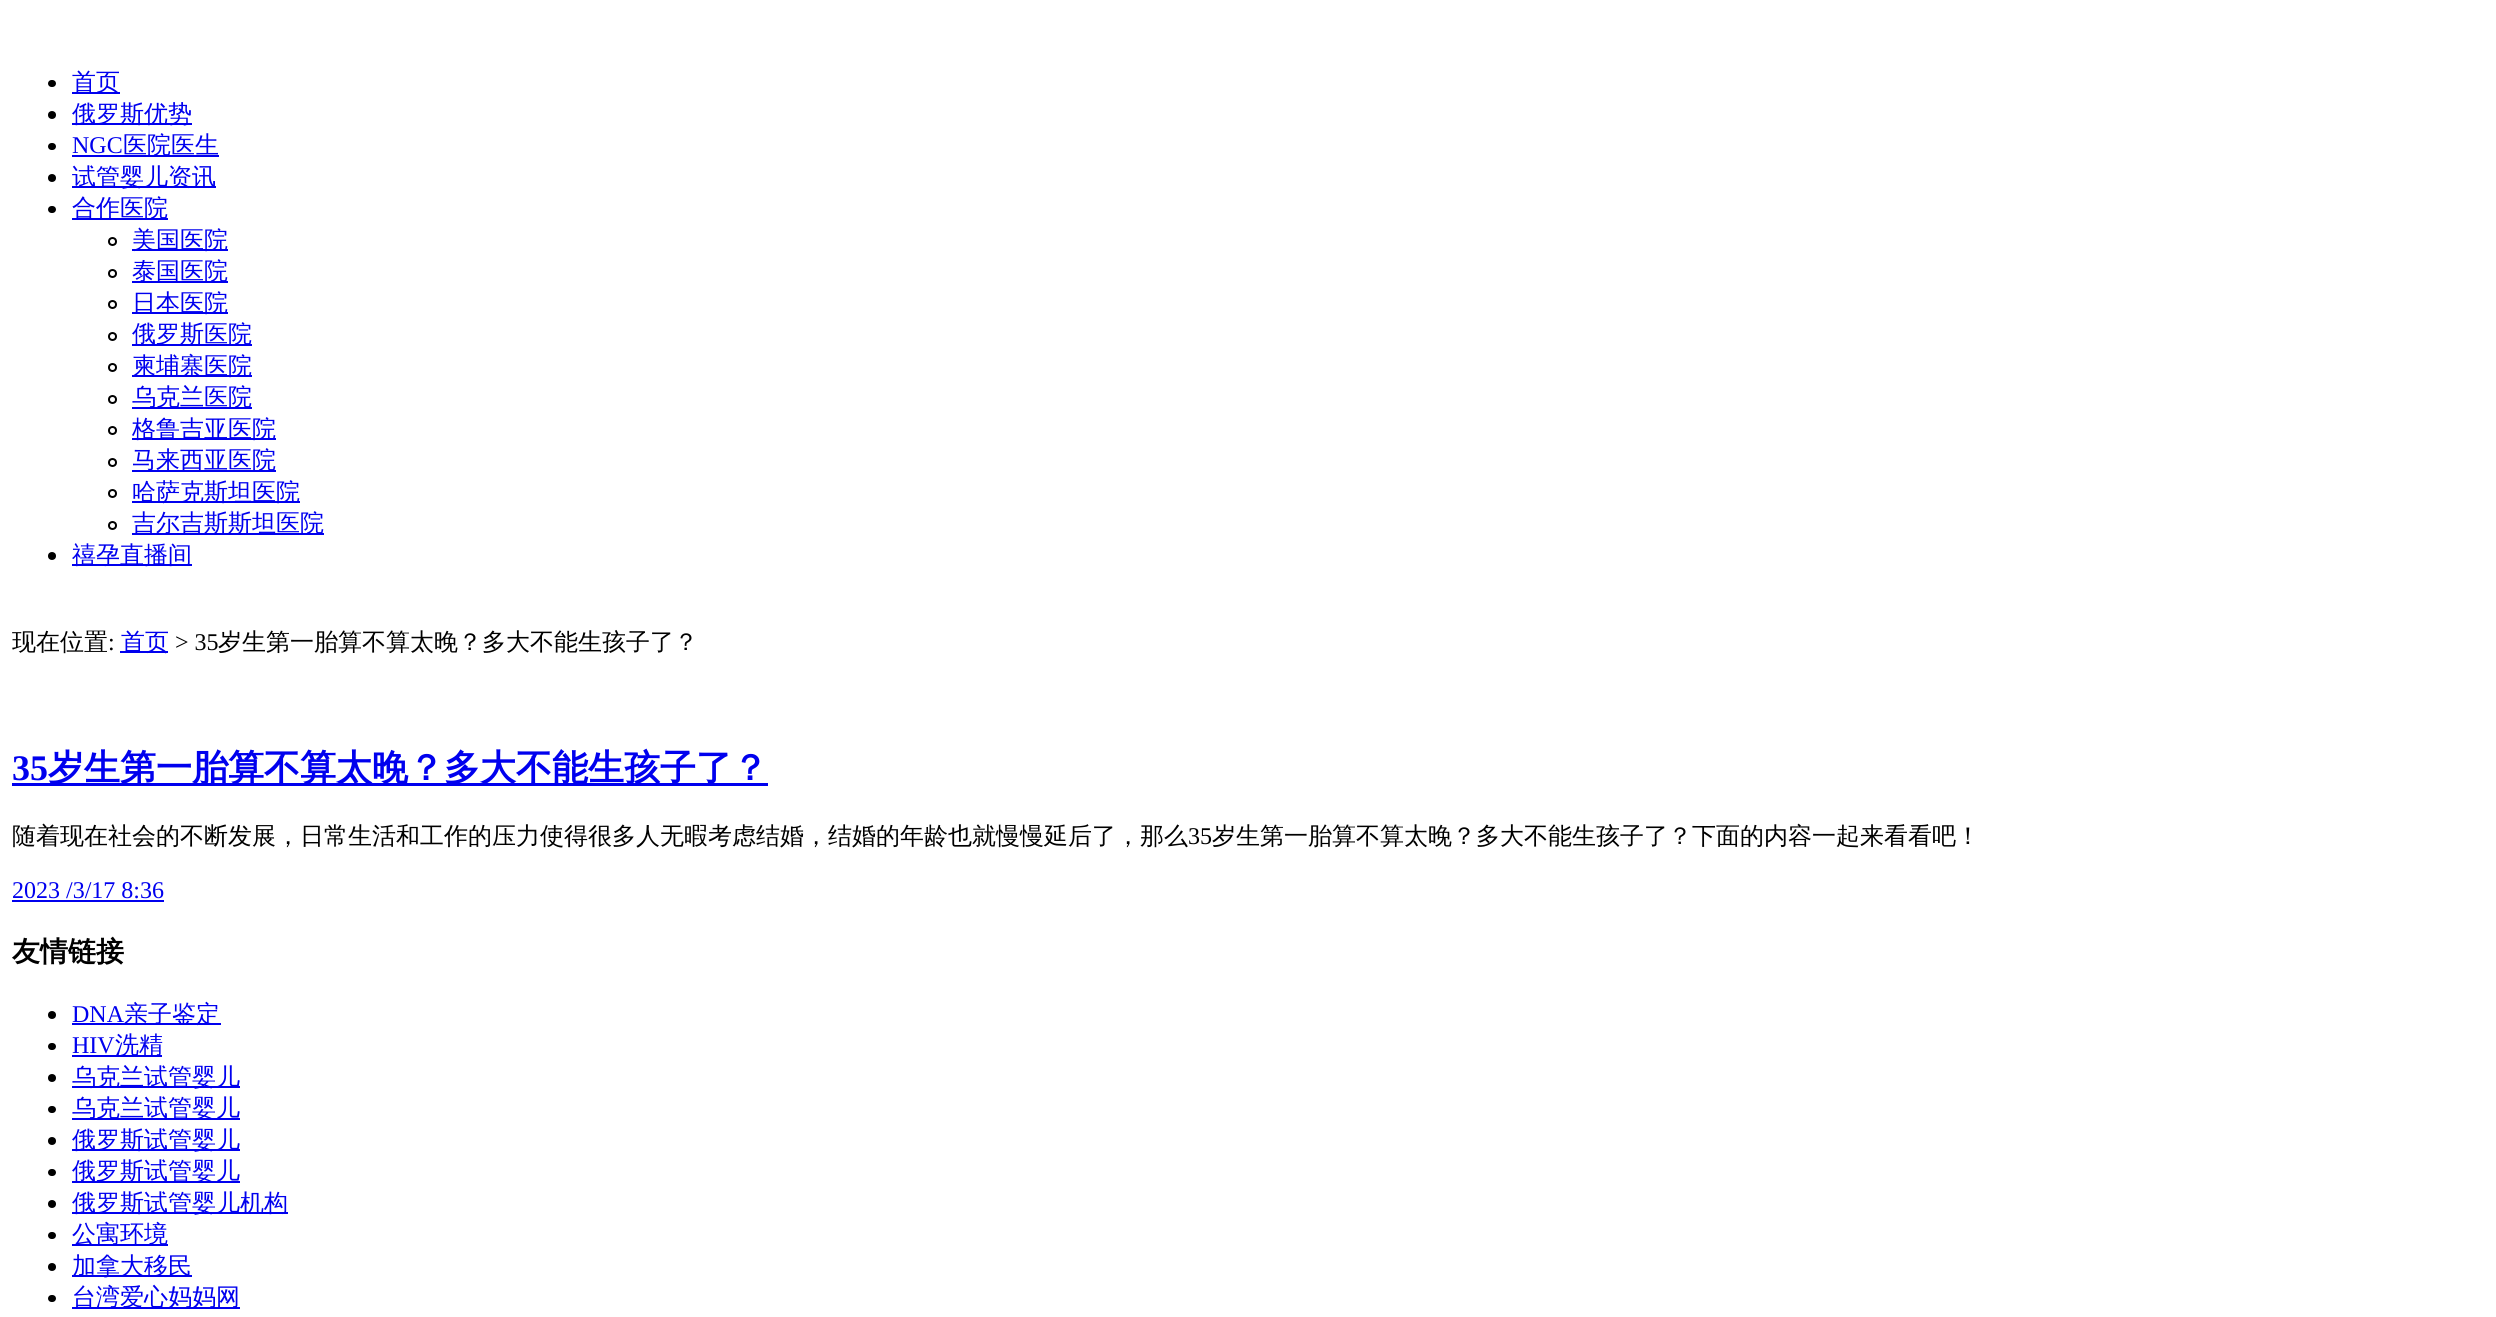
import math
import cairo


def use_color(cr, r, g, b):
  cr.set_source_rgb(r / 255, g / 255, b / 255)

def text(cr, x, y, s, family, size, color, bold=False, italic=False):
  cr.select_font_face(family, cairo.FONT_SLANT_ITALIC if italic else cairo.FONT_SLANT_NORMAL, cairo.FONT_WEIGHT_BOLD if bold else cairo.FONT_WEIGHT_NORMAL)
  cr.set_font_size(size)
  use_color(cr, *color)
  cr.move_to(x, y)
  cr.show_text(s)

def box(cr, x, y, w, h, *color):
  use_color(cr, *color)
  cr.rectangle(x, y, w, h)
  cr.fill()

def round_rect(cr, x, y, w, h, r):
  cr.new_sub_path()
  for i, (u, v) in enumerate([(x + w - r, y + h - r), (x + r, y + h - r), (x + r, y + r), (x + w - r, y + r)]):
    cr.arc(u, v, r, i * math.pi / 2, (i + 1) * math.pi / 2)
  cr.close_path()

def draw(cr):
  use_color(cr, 255, 255, 255)
  cr.paint()
  use_color(cr, 0, 0, 0)
  round_rect(cr, 48, 80, 8, 7, 3.5)
  cr.fill()
  box(cr, 72, 92, 48, 2, 0, 0, 238)
  use_color(cr, 0, 0, 0)
  cr.arc(52, 115, 4, 0, 2 * math.pi)
  cr.fill()
  box(cr, 72, 123, 120, 2, 0, 0, 238)
  use_color(cr, 0, 0, 0)
  round_rect(cr, 48, 143, 8, 7, 3.5)
  cr.fill()
  box(cr, 72, 155, 147, 2, 0, 0, 238)
  use_color(cr, 0, 0, 0)
  cr.arc(52, 178, 4, 0, 2 * math.pi)
  cr.fill()
  box(cr, 72, 186, 144, 2, 0, 0, 238)
  use_color(cr, 0, 0, 0)
  round_rect(cr, 48, 206, 8, 7, 3.5)
  cr.fill()
  box(cr, 72, 218, 96, 2, 0, 0, 238)
  cr.arc(112.5, 241.5, 3.5, 0, 2 * math.pi)
  use_color(cr, 0, 0, 0)
  cr.stroke()
  box(cr, 132, 249, 96, 2, 0, 0, 238)
  cr.arc(112.5, 273.5, 3.5, 0, 2 * math.pi)
  use_color(cr, 0, 0, 0)
  cr.stroke()
  box(cr, 132, 281, 96, 2, 0, 0, 238)
  cr.arc(112.5, 304.5, 3.5, 0, 2 * math.pi)
  use_color(cr, 0, 0, 0)
  cr.stroke()
  box(cr, 132, 312, 96, 2, 0, 0, 238)
  cr.arc(112.5, 336.5, 3.5, 0, 2 * math.pi)
  use_color(cr, 0, 0, 0)
  cr.stroke()
  box(cr, 132, 344, 120, 2, 0, 0, 238)
  cr.arc(112.5, 367.5, 3.5, 0, 2 * math.pi)
  use_color(cr, 0, 0, 0)
  cr.stroke()
  box(cr, 132, 375, 120, 2, 0, 0, 238)
  cr.arc(112.5, 399.5, 3.5, 0, 2 * math.pi)
  use_color(cr, 0, 0, 0)
  cr.stroke()
  box(cr, 132, 407, 120, 2, 0, 0, 238)
  cr.arc(112.5, 430.5, 3.5, 0, 2 * math.pi)
  use_color(cr, 0, 0, 0)
  cr.stroke()
  box(cr, 132, 438, 144, 2, 0, 0, 238)
  cr.arc(112.5, 462.5, 3.5, 0, 2 * math.pi)
  use_color(cr, 0, 0, 0)
  cr.stroke()
  box(cr, 132, 470, 144, 2, 0, 0, 238)
  cr.arc(112.5, 493.5, 3.5, 0, 2 * math.pi)
  use_color(cr, 0, 0, 0)
  cr.stroke()
  box(cr, 132, 501, 168, 2, 0, 0, 238)
  cr.arc(112.5, 525.5, 3.5, 0, 2 * math.pi)
  use_color(cr, 0, 0, 0)
  cr.stroke()
  box(cr, 132, 533, 192, 2, 0, 0, 238)
  use_color(cr, 0, 0, 0)
  cr.arc(52, 556, 4, 0, 2 * math.pi)
  cr.fill()
  box(cr, 72, 564, 120, 2, 0, 0, 238)
  box(cr, 120, 651, 48, 2, 0, 0, 238)
  box(cr, 12, 783, 756, 3, 0, 0, 238)
  box(cr, 12, 900, 152, 2, 0, 0, 238)
  use_color(cr, 0, 0, 0)
  cr.arc(52, 1015, 4, 0, 2 * math.pi)
  cr.fill()
  box(cr, 72, 1023, 149, 2, 0, 0, 238)
  use_color(cr, 0, 0, 0)
  round_rect(cr, 48, 1043, 8, 7, 3.5)
  cr.fill()
  box(cr, 72, 1055, 90, 2, 0, 0, 238)
  use_color(cr, 0, 0, 0)
  cr.arc(52, 1078, 4, 0, 2 * math.pi)
  cr.fill()
  box(cr, 72, 1086, 168, 2, 0, 0, 238)
  use_color(cr, 0, 0, 0)
  round_rect(cr, 48, 1106, 8, 7, 3.5)
  cr.fill()
  box(cr, 72, 1118, 168, 2, 0, 0, 238)
  use_color(cr, 0, 0, 0)
  cr.arc(52, 1141, 4, 0, 2 * math.pi)
  cr.fill()
  box(cr, 72, 1149, 168, 2, 0, 0, 238)
  use_color(cr, 0, 0, 0)
  round_rect(cr, 48, 1169, 8, 7, 3.5)
  cr.fill()
  box(cr, 72, 1181, 168, 2, 0, 0, 238)
  use_color(cr, 0, 0, 0)
  cr.arc(52, 1204, 4, 0, 2 * math.pi)
  cr.fill()
  box(cr, 72, 1212, 216, 2, 0, 0, 238)
  use_color(cr, 0, 0, 0)
  round_rect(cr, 48, 1232, 8, 7, 3.5)
  cr.fill()
  box(cr, 72, 1244, 96, 2, 0, 0, 238)
  use_color(cr, 0, 0, 0)
  cr.arc(52, 1267, 4, 0, 2 * math.pi)
  cr.fill()
  box(cr, 72, 1275, 120, 2, 0, 0, 238)
  use_color(cr, 0, 0, 0)
  round_rect(cr, 48, 1295, 8, 7, 3.5)
  cr.fill()
  box(cr, 72, 1307, 168, 2, 0, 0, 238)
  text(cr, 72, 90, "首页", "WenQuanYi Zen Hei Medium", 24, (0, 0, 238))
  text(cr, 72, 122, "俄罗斯优势", "WenQuanYi Zen Hei Medium", 24, (0, 0, 238))
  text(cr, 72, 153, "NGC", "Liberation Serif", 24, (0, 0, 238))
  text(cr, 123, 153, "医院医生", "WenQuanYi Zen Hei Medium", 24, (0, 0, 238))
  text(cr, 72, 185, "试管婴儿资讯", "WenQuanYi Zen Hei Medium", 24, (0, 0, 238))
  text(cr, 72, 216, "合作医院", "WenQuanYi Zen Hei Medium", 24, (0, 0, 238))
  text(cr, 132, 248, "美国医院", "WenQuanYi Zen Hei Medium", 24, (0, 0, 238))
  text(cr, 132, 279, "泰国医院", "WenQuanYi Zen Hei Medium", 24, (0, 0, 238))
  text(cr, 132, 311, "日本医院", "WenQuanYi Zen Hei Medium", 24, (0, 0, 238))
  text(cr, 132, 342, "俄罗斯医院", "WenQuanYi Zen Hei Medium", 24, (0, 0, 238))
  text(cr, 132, 374, "柬埔寨医院", "WenQuanYi Zen Hei Medium", 24, (0, 0, 238))
  text(cr, 132, 405, "乌克兰医院", "WenQuanYi Zen Hei Medium", 24, (0, 0, 238))
  text(cr, 132, 437, "格鲁吉亚医院", "WenQuanYi Zen Hei Medium", 24, (0, 0, 238))
  text(cr, 132, 468, "马来西亚医院", "WenQuanYi Zen Hei Medium", 24, (0, 0, 238))
  text(cr, 132, 500, "哈萨克斯坦医院", "WenQuanYi Zen Hei Medium", 24, (0, 0, 238))
  text(cr, 132, 531, "吉尔吉斯斯坦医院", "WenQuanYi Zen Hei Medium", 24, (0, 0, 238))
  text(cr, 72, 563, "禧孕直播间", "WenQuanYi Zen Hei Medium", 24, (0, 0, 238))
  text(cr, 12, 650, "现在位置", "WenQuanYi Zen Hei Medium", 24, (0, 0, 0))
  text(cr, 108, 650, ":", "Liberation Serif", 24, (0, 0, 0))
  text(cr, 121, 650, "首页", "WenQuanYi Zen Hei Medium", 24, (0, 0, 238))
  text(cr, 175, 650, "> 35", "Liberation Serif", 24, (0, 0, 0))
  text(cr, 218, 650, "岁生第一胎算不算太晚？多大不能生孩子了？", "WenQuanYi Zen Hei Medium", 24, (0, 0, 0))
  text(cr, 12, 780, "35", "Liberation Serif", 36, (0, 0, 238), bold=True)
  text(cr, 48, 780, "岁生第一胎算不算太晚？多大不能生孩子了？", "WenQuanYi Zen Hei", 36, (0, 0, 238), bold=True)
  text(cr, 12, 844, "随着现在社会的不断发展，日常生活和工作的压力使得很多人无暇考虑结婚，结婚的年龄也就慢慢延后了，那么", "WenQuanYi Zen Hei Medium", 24, (0, 0, 0))
  text(cr, 1188, 844, "35", "Liberation Serif", 24, (0, 0, 0))
  text(cr, 1212, 844, "岁生第一胎算不算太晚？多大不能生孩子了？下面的内容一起来看看吧！", "WenQuanYi Zen Hei Medium", 24, (0, 0, 0))
  text(cr, 12, 898, "2023 /3/17 8:36", "Liberation Serif", 24, (0, 0, 238))
  text(cr, 12, 961, "友情链接", "WenQuanYi Zen Hei", 28, (0, 0, 0), bold=True)
  text(cr, 72, 1022, "DNA", "Liberation Serif", 24, (0, 0, 238))
  text(cr, 124, 1022, "亲子鉴定", "WenQuanYi Zen Hei Medium", 24, (0, 0, 238))
  text(cr, 72, 1053, "HIV", "Liberation Serif", 24, (0, 0, 238))
  text(cr, 115, 1053, "洗精", "WenQuanYi Zen Hei Medium", 24, (0, 0, 238))
  text(cr, 72, 1085, "乌克兰试管婴儿", "WenQuanYi Zen Hei Medium", 24, (0, 0, 238))
  text(cr, 72, 1116, "乌克兰试管婴儿", "WenQuanYi Zen Hei Medium", 24, (0, 0, 238))
  text(cr, 72, 1148, "俄罗斯试管婴儿", "WenQuanYi Zen Hei Medium", 24, (0, 0, 238))
  text(cr, 72, 1179, "俄罗斯试管婴儿", "WenQuanYi Zen Hei Medium", 24, (0, 0, 238))
  text(cr, 72, 1211, "俄罗斯试管婴儿机构", "WenQuanYi Zen Hei Medium", 24, (0, 0, 238))
  text(cr, 72, 1242, "公寓环境", "WenQuanYi Zen Hei Medium", 24, (0, 0, 238))
  text(cr, 72, 1274, "加拿大移民", "WenQuanYi Zen Hei Medium", 24, (0, 0, 238))
  text(cr, 72, 1305, "台湾爱心妈妈网", "WenQuanYi Zen Hei Medium", 24, (0, 0, 238))


surface = cairo.ImageSurface(cairo.FORMAT_RGB24, 2496, 1317)
cr = cairo.Context(surface)
options = cairo.FontOptions()
options.set_hint_metrics(cairo.HINT_METRICS_OFF)
options.set_hint_style(cairo.HINT_STYLE_NONE)
cr.set_font_options(options)
cr.set_miter_limit(4)
draw(cr)
surface.write_to_png("out.png")
